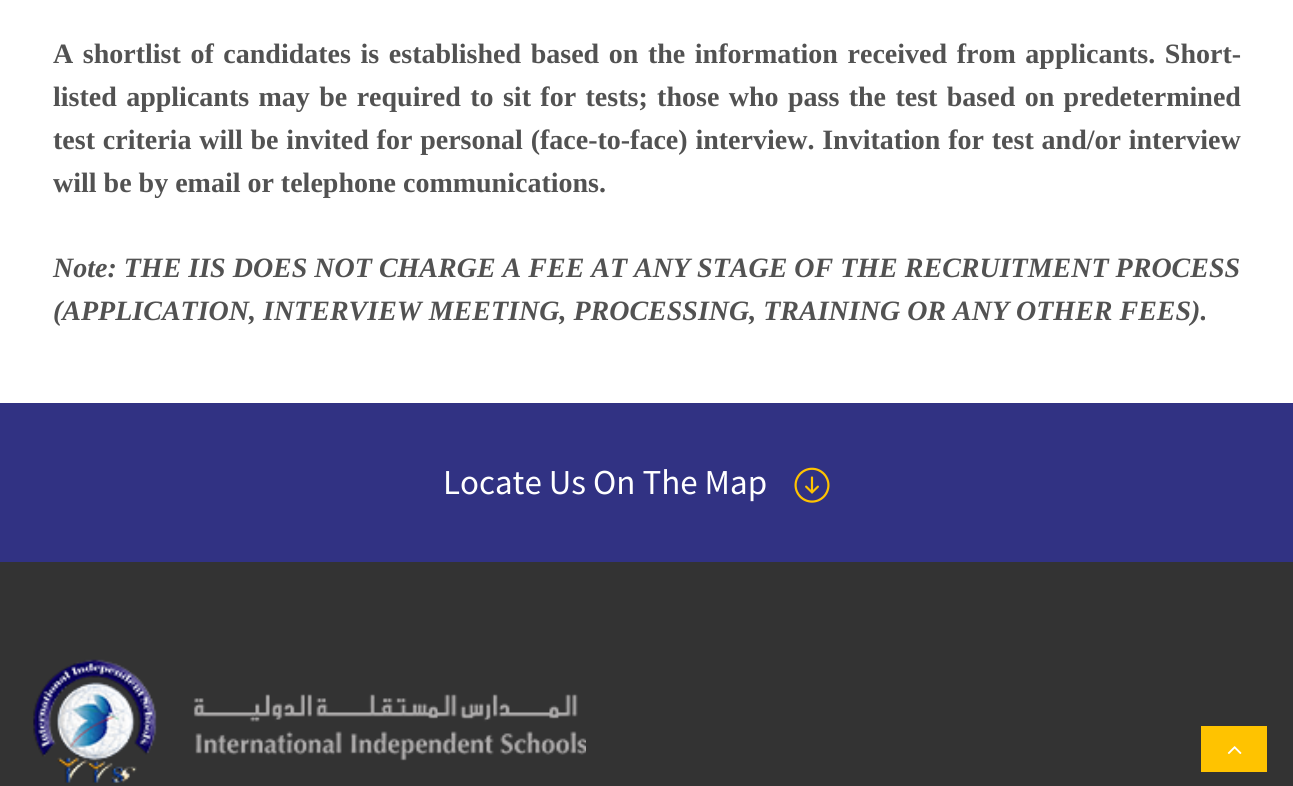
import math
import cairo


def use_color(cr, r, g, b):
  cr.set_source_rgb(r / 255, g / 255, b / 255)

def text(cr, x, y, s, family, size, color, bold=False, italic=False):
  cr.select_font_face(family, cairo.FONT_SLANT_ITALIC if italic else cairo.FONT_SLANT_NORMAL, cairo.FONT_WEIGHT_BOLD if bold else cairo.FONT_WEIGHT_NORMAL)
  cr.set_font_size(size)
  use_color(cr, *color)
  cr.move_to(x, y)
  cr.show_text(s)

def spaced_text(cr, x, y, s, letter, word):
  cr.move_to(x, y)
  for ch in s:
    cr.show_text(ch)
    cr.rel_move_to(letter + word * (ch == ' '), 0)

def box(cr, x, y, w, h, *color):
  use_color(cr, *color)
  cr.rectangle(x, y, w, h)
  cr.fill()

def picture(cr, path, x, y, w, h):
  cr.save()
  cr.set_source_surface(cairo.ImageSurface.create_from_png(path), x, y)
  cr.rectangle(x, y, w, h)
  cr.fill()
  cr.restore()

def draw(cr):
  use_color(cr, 255, 255, 255)
  cr.paint()
  box(cr, 0, 403, 1293, 159, 49, 50, 131)
  picture(cr, "img_01.png", 794, 467, 36, 36)
  box(cr, 0, 562, 1293, 224, 51, 51, 51)
  picture(cr, "img_02.png", 33, 659, 553, 124)
  box(cr, 1201, 726, 66, 46, 255, 195, 0)
  picture(cr, "img_03.png", 1227, 746, 15, 8)
  cr.select_font_face("Liberation Serif", cairo.FONT_SLANT_NORMAL, cairo.FONT_WEIGHT_BOLD)
  cr.set_font_size(28)
  use_color(cr, 82, 82, 82)
  spaced_text(cr, 53, 63, "A shortlist of candidates is established based on the information received from applicants. Short-", 0, 2.6)
  spaced_text(cr, 53, 106, "listed applicants may be required to sit for tests; those who pass the test based on predetermined", 0, 2.4)
  spaced_text(cr, 53, 149, "test criteria will be invited for personal (face-to-face) interview. Invitation for test and/or interview", 0, 0.8)
  text(cr, 53, 192, "will be by email or telephone communications.", "Liberation Serif", 28, (82, 82, 82), bold=True)
  text(cr, 53, 277, "Note: THE IIS DOES NOT CHARGE A FEE AT ANY STAGE OF THE RECRUITMENT PROCESS", "Liberation Serif", 28, (82, 82, 82), bold=True, italic=True)
  text(cr, 53, 320, "(APPLICATION, INTERVIEW MEETING, PROCESSING, TRAINING OR ANY OTHER FEES).", "Liberation Serif", 28, (82, 82, 82), bold=True, italic=True)
  text(cr, 443, 494, "Locate Us On The Map", "Source Sans Pro", 35, (255, 255, 255))


surface = cairo.ImageSurface(cairo.FORMAT_RGB24, 1293, 786)
cr = cairo.Context(surface)
options = cairo.FontOptions()
options.set_hint_metrics(cairo.HINT_METRICS_OFF)
options.set_hint_style(cairo.HINT_STYLE_NONE)
cr.set_font_options(options)
cr.set_miter_limit(4)
draw(cr)
surface.write_to_png("out.png")
